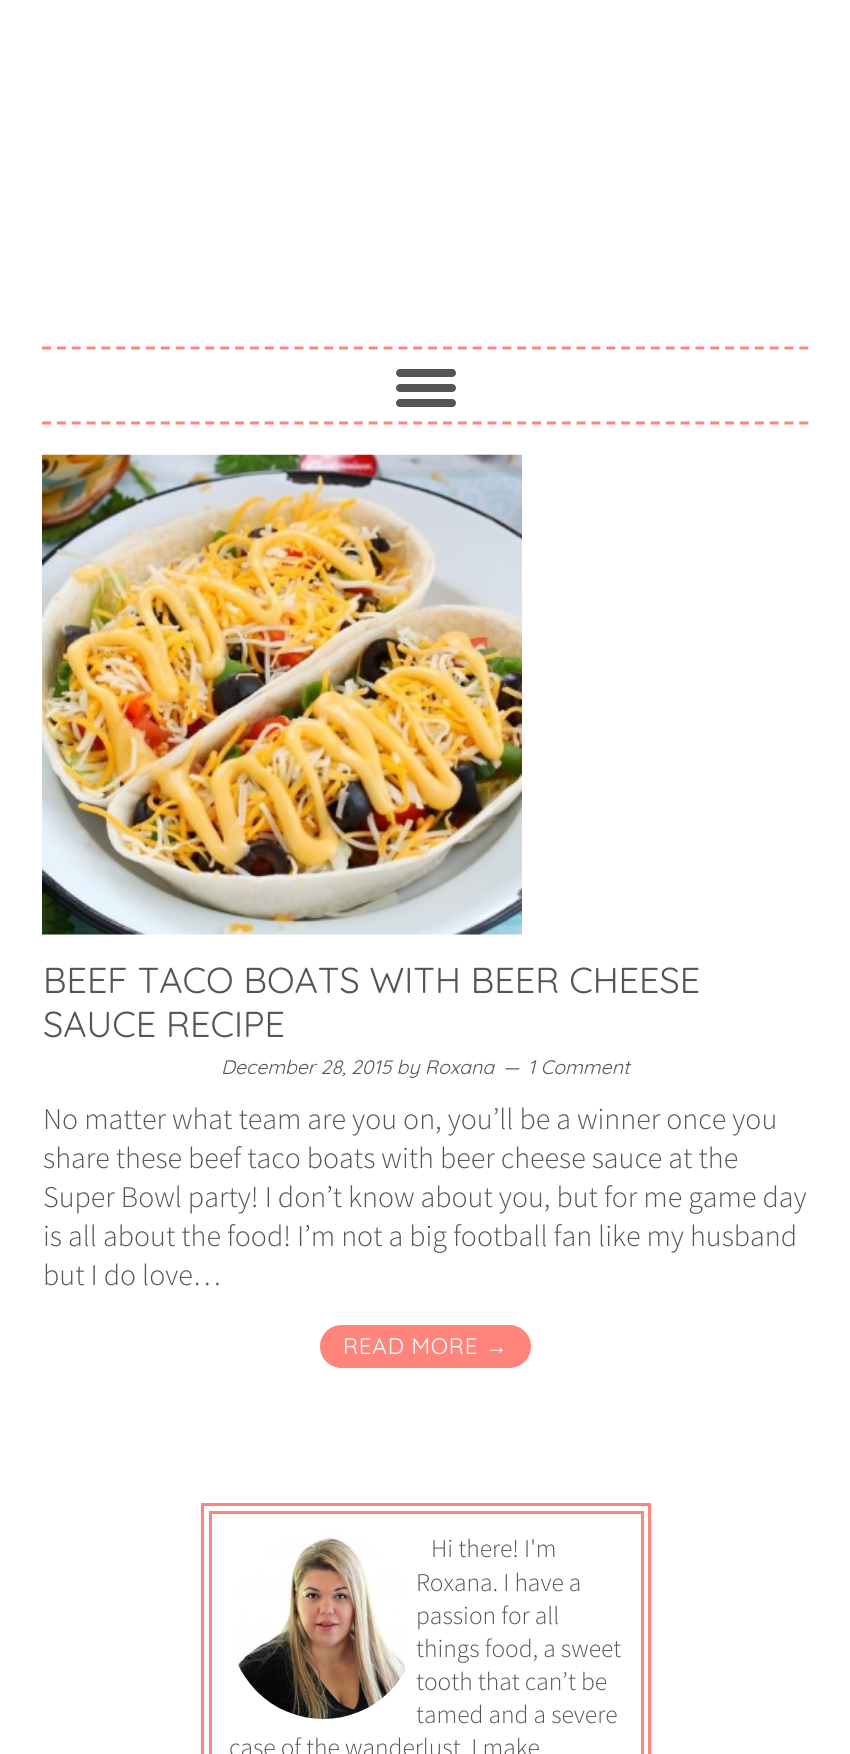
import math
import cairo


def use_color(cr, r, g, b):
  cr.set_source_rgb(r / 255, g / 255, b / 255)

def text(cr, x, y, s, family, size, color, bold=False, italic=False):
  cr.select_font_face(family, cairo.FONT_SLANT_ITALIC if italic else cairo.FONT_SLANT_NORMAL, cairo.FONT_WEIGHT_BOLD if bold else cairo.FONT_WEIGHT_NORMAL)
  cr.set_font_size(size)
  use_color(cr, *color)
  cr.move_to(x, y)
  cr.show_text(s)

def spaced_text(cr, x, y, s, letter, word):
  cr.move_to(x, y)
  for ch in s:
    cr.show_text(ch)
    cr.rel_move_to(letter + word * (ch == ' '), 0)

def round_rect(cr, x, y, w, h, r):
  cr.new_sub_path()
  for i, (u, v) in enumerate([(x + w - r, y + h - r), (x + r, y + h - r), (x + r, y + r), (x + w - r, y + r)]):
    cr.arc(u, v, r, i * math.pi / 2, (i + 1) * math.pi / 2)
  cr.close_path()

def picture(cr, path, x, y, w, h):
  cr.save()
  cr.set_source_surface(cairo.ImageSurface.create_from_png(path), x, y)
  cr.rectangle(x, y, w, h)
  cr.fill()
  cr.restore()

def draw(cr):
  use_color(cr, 255, 255, 255)
  cr.paint()
  cr.new_path()
  cr.move_to(42, 348)
  cr.line_to(808.5, 348)
  use_color(cr, 255, 132, 124)
  cr.set_line_width(3)
  cr.set_dash([9, 5.85])
  cr.stroke()
  cr.new_path()
  cr.move_to(42, 423)
  cr.line_to(808.5, 423)
  cr.stroke()
  use_color(cr, 85, 85, 85)
  round_rect(cr, 396, 384, 60, 8, 4)
  cr.fill()
  round_rect(cr, 396, 369, 60, 8, 4)
  cr.fill()
  round_rect(cr, 396, 399, 60, 8, 4)
  cr.fill()
  picture(cr, "img_01.png", 42, 454, 480, 481)
  use_color(cr, 255, 132, 124)
  round_rect(cr, 320, 1325, 211, 43, 21.5)
  cr.fill()
  cr.rectangle(202.5, 1504.5, 447, 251)
  cr.set_dash([])
  cr.stroke()
  cr.rectangle(210.5, 1512.5, 432, 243)
  cr.stroke()
  picture(cr, "img_02.png", 236, 1532, 170, 187)
  text(cr, 43, 993, "BEEF TACO BOATS WITH BEER CHEESE", "Quicksand Light", 36, (85, 85, 85))
  text(cr, 43, 1037, "SAUCE RECIPE", "Quicksand Light", 36, (85, 85, 85))
  text(cr, 221, 1074, "December 28, 2015 by Roxana", "Quicksand Light", 19.5, (85, 85, 85), italic=True)
  text(cr, 503, 1074, "—", "Quicksand Light", 19.5, (85, 85, 85), italic=True)
  text(cr, 528, 1074, "1 Comment", "Quicksand Light", 19.5, (85, 85, 85), italic=True)
  text(cr, 43, 1129, "No matter what team are you on, you’ll be a winner once you", "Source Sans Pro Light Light", 30, (85, 85, 85))
  text(cr, 43, 1168, "share these beef taco boats with beer cheese sauce at the", "Source Sans Pro Light Light", 30, (85, 85, 85))
  text(cr, 43, 1207, "Super Bowl party! I don’t know about you, but for me game day", "Source Sans Pro Light Light", 30, (85, 85, 85))
  text(cr, 43, 1246, "is all about the food! I’m not a big football fan like my husband", "Source Sans Pro Light Light", 30, (85, 85, 85))
  text(cr, 43, 1285, "but I do love…", "Source Sans Pro Light Light", 30, (85, 85, 85))
  cr.select_font_face("Quicksand Light")
  cr.set_font_size(22.5)
  use_color(cr, 255, 255, 255)
  spaced_text(cr, 343, 1354, "READ MORE", 0.75, 0)
  cr.select_font_face("Liberation Sans")
  spaced_text(cr, 485, 1354, "→", 0.75, 0)
  text(cr, 431, 1557, "Hi there! I'm", "Source Sans Pro Light Light", 25.5, (85, 85, 85))
  text(cr, 416, 1591, "Roxana. I have a", "Source Sans Pro Light Light", 25.5, (85, 85, 85))
  text(cr, 416, 1624, "passion for all", "Source Sans Pro Light Light", 25.5, (85, 85, 85))
  text(cr, 416, 1657, "things food, a sweet", "Source Sans Pro Light Light", 25.5, (85, 85, 85))
  text(cr, 416, 1690, "tooth that can’t be", "Source Sans Pro Light Light", 25.5, (85, 85, 85))
  text(cr, 416, 1723, "tamed and a severe", "Source Sans Pro Light Light", 25.5, (85, 85, 85))
  text(cr, 229, 1756, "case of the wanderlust. I make", "Source Sans Pro Light Light", 25.5, (85, 85, 85))


surface = cairo.ImageSurface(cairo.FORMAT_RGB24, 850, 1754)
cr = cairo.Context(surface)
options = cairo.FontOptions()
options.set_hint_metrics(cairo.HINT_METRICS_OFF)
options.set_hint_style(cairo.HINT_STYLE_NONE)
cr.set_font_options(options)
cr.set_miter_limit(4)
draw(cr)
surface.write_to_png("out.png")
